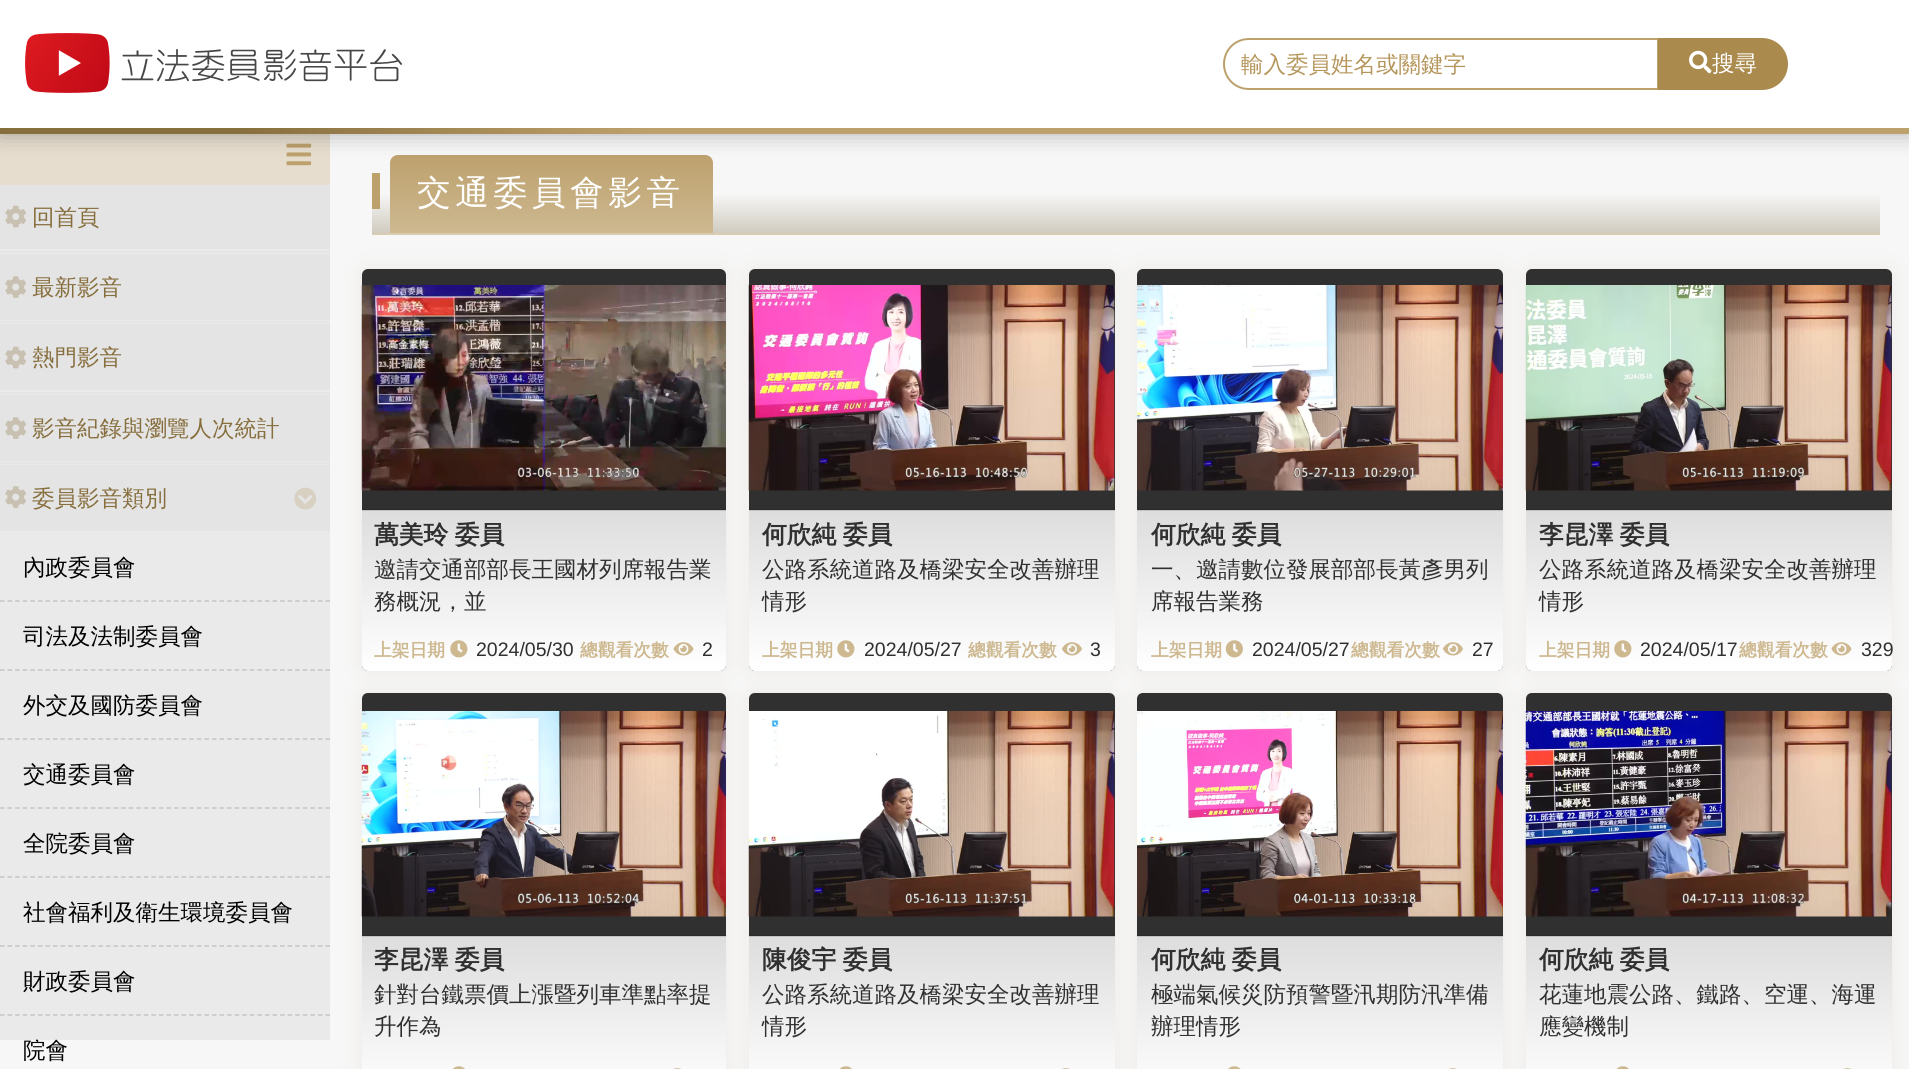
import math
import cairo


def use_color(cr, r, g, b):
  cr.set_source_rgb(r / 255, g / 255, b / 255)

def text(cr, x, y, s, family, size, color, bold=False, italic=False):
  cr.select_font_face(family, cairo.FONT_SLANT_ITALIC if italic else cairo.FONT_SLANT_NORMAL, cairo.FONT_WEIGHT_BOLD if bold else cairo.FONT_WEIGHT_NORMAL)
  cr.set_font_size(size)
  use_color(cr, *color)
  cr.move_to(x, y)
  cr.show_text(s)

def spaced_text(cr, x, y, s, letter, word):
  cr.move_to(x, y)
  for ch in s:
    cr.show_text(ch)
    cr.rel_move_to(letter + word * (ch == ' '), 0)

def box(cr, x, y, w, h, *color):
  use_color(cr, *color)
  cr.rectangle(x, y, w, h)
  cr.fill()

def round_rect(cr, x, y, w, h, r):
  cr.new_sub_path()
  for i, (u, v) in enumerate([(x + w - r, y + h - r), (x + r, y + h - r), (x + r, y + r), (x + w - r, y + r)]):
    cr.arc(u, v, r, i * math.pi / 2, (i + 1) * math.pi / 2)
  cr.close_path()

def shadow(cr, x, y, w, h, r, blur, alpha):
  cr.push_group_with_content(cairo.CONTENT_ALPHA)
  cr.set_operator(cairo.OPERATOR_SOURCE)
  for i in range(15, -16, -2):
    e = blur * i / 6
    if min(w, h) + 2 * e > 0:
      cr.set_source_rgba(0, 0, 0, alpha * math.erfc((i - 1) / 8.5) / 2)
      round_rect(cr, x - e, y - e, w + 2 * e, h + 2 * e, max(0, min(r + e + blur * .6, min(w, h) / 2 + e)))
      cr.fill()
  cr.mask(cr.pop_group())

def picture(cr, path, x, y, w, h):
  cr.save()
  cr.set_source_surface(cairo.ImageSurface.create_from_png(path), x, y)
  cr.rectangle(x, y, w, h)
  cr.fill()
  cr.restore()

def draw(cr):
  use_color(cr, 247, 247, 247)
  cr.paint()
  box(cr, 0, 134, 330, 51, 230, 221, 206)
  picture(cr, "img_03.png", 286, 143, 26, 23)
  gradient = cairo.LinearGradient(1126, 154, 1126, 233)
  gradient.add_color_stop_rgba(0.5, 0.969, 0.969, 0.969, 1)
  gradient.add_color_stop_rgba(1, 0.816, 0.796, 0.753, 1)
  cr.set_source(gradient)
  cr.rectangle(372, 195, 1508, 38)
  cr.fill()
  gradient = cairo.LinearGradient(551, 154, 551, 233)
  gradient.add_color_stop_rgba(0, 0.741, 0.631, 0.427, 1)
  gradient.add_color_stop_rgba(1, 0.804, 0.722, 0.565, 1)
  cr.set_source(gradient)
  cr.new_path()
  cr.move_to(398, 155)
  cr.line_to(705, 155)
  cr.curve_to(709.5, 155, 713, 158.5, 713, 163)
  cr.line_to(713, 233)
  cr.line_to(390, 233)
  cr.line_to(390, 163)
  cr.curve_to(390, 158.5, 393.5, 155, 398, 155)
  cr.close_path()
  cr.fill()
  use_color(cr, 0, 0, 0)
  shadow(cr, 0, 0, 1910, 134, 0, 11, 0.3)
  gradient = cairo.LinearGradient(0, 67, 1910, 67)
  gradient.add_color_stop_rgba(0.12, 0.529, 0.431, 0.239, 1)
  gradient.add_color_stop_rgba(0.34, 0.741, 0.631, 0.427, 1)
  cr.set_source(gradient)
  cr.rectangle(0, 128, 1909, 6)
  cr.fill()
  box(cr, 0, 0, 1909, 128, 255, 255, 255)
  picture(cr, "img_01.png", 25, 33, 377, 60)
  cr.new_path()
  cr.move_to(1249, 39)
  cr.line_to(1658, 39)
  cr.line_to(1658, 89)
  cr.line_to(1249, 89)
  cr.curve_to(1235, 89, 1224, 78, 1224, 64)
  cr.curve_to(1224, 50, 1235, 39, 1249, 39)
  cr.close_path()
  use_color(cr, 189, 161, 109)
  cr.stroke()
  use_color(cr, 170, 138, 77)
  cr.new_path()
  cr.move_to(1658, 38)
  cr.line_to(1762, 38)
  cr.curve_to(1776.5, 38, 1788, 49.5, 1788, 64)
  cr.curve_to(1788, 78.5, 1776.5, 90, 1762, 90)
  cr.line_to(1658, 90)
  cr.close_path()
  cr.fill()
  picture(cr, "img_02.png", 1689, 50, 23, 24)
  box(cr, 0, 249, 330, 791, 234, 234, 234)
  box(cr, 0, 251, 330, 2, 229, 229, 229)
  box(cr, 0, 185, 330, 64, 228, 228, 228)
  picture(cr, "img_04.png", 5, 205, 22, 23)
  box(cr, 0, 321, 330, 2, 229, 229, 229)
  box(cr, 0, 254, 330, 66, 228, 228, 228)
  picture(cr, "img_05.png", 5, 276, 21, 22)
  box(cr, 0, 392, 330, 2, 229, 229, 229)
  box(cr, 0, 324, 330, 66, 228, 228, 228)
  picture(cr, "img_04.png", 5, 346, 22, 23)
  box(cr, 0, 462, 330, 2, 229, 229, 229)
  box(cr, 0, 395, 330, 66, 228, 228, 228)
  picture(cr, "img_05.png", 5, 417, 21, 22)
  box(cr, 0, 465, 330, 66, 228, 228, 228)
  picture(cr, "img_05.png", 5, 486, 21, 22)
  picture(cr, "img_06.png", 294, 487, 23, 23)
  cr.new_path()
  cr.move_to(0, 601)
  cr.line_to(330, 601)
  use_color(cr, 196, 196, 196)
  cr.set_line_width(1.5)
  cr.set_dash([4.5, 3.07])
  cr.stroke()
  cr.new_path()
  cr.move_to(0, 670)
  cr.line_to(330, 670)
  cr.stroke()
  cr.new_path()
  cr.move_to(0, 739)
  cr.line_to(330, 739)
  cr.stroke()
  cr.new_path()
  cr.move_to(0, 808)
  cr.line_to(330, 808)
  cr.stroke()
  cr.new_path()
  cr.move_to(0, 877)
  cr.line_to(330, 877)
  cr.stroke()
  cr.new_path()
  cr.move_to(0, 946)
  cr.line_to(330, 946)
  cr.stroke()
  cr.new_path()
  cr.move_to(0, 1015)
  cr.line_to(330, 1015)
  cr.stroke()
  box(cr, 372, 233, 1508, 2, 218, 204, 178)
  box(cr, 372, 173, 8, 36, 189, 161, 109)
  use_color(cr, 135, 110, 61)
  shadow(cr, 362, 269, 364, 402, 6, 10.5, 0.1)
  use_color(cr, 48, 48, 48)
  round_rect(cr, 362, 269, 364, 402, 6)
  cr.fill()
  box(cr, 362, 509, 364, 1, 42, 42, 42)
  picture(cr, "img_07.png", 361, 285, 365, 206)
  gradient = cairo.LinearGradient(544, 510, 544, 671)
  gradient.add_color_stop_rgba(0, 0.867, 0.867, 0.867, 1)
  gradient.add_color_stop_rgba(1, 1, 1, 1, 1)
  cr.set_source(gradient)
  cr.new_path()
  cr.move_to(362, 510)
  cr.line_to(726, 510)
  cr.line_to(726, 665)
  cr.curve_to(726, 668.5, 723.5, 671, 720, 671)
  cr.line_to(368, 671)
  cr.curve_to(364.5, 671, 362, 668.5, 362, 665)
  cr.close_path()
  cr.fill()
  gradient = cairo.LinearGradient(544, 510, 544, 671)
  gradient.add_color_stop_rgba(0, 0.761, 0.761, 0.761, 1)
  gradient.add_color_stop_rgba(1, 0.878, 0.878, 0.878, 1)
  cr.set_source(gradient)
  cr.rectangle(362, 510, 364, 1)
  cr.fill()
  picture(cr, "img_08.png", 450, 640, 18, 18)
  picture(cr, "img_09.png", 673, 642, 21, 14)
  use_color(cr, 135, 110, 61)
  shadow(cr, 749, 269, 366, 402, 6, 10.5, 0.1)
  use_color(cr, 48, 48, 48)
  round_rect(cr, 749, 269, 366, 402, 6)
  cr.fill()
  picture(cr, "img_10.png", 748, 285, 367, 206)
  gradient = cairo.LinearGradient(932, 510, 932, 671)
  gradient.add_color_stop_rgba(0, 0.867, 0.867, 0.867, 1)
  gradient.add_color_stop_rgba(1, 1, 1, 1, 1)
  cr.set_source(gradient)
  cr.new_path()
  cr.move_to(749, 510)
  cr.line_to(1115, 510)
  cr.line_to(1115, 665)
  cr.curve_to(1115, 668.5, 1112.5, 671, 1109, 671)
  cr.line_to(755, 671)
  cr.curve_to(751.5, 671, 749, 668.5, 749, 665)
  cr.close_path()
  cr.fill()
  cr.set_source_rgba(0, 0, 0, 0.12)
  cr.rectangle(749, 509, 366, 2)
  cr.fill()
  picture(cr, "img_08.png", 837, 640, 18, 18)
  picture(cr, "img_11.png", 1062, 642, 20, 14)
  use_color(cr, 135, 110, 61)
  shadow(cr, 1137, 269, 366, 402, 6, 10.5, 0.1)
  use_color(cr, 48, 48, 48)
  round_rect(cr, 1137, 269, 366, 402, 6)
  cr.fill()
  box(cr, 1137, 509, 366, 1, 42, 42, 42)
  picture(cr, "img_12.png", 1137, 285, 366, 206)
  gradient = cairo.LinearGradient(1320, 510, 1320, 671)
  gradient.add_color_stop_rgba(0, 0.867, 0.867, 0.867, 1)
  gradient.add_color_stop_rgba(1, 1, 1, 1, 1)
  cr.set_source(gradient)
  cr.new_path()
  cr.move_to(1137, 510)
  cr.line_to(1503, 510)
  cr.line_to(1503, 665)
  cr.curve_to(1503, 668.5, 1500.5, 671, 1497, 671)
  cr.line_to(1143, 671)
  cr.curve_to(1139.5, 671, 1137, 668.5, 1137, 665)
  cr.close_path()
  cr.fill()
  gradient = cairo.LinearGradient(1320, 510, 1320, 671)
  gradient.add_color_stop_rgba(0, 0.761, 0.761, 0.761, 1)
  gradient.add_color_stop_rgba(1, 0.878, 0.878, 0.878, 1)
  cr.set_source(gradient)
  cr.rectangle(1137, 510, 366, 1)
  cr.fill()
  picture(cr, "img_13.png", 1225, 640, 18, 18)
  picture(cr, "img_11.png", 1443, 642, 20, 14)
  use_color(cr, 135, 110, 61)
  shadow(cr, 1526, 269, 366, 402, 6, 10.5, 0.1)
  use_color(cr, 48, 48, 48)
  round_rect(cr, 1526, 269, 366, 402, 6)
  cr.fill()
  picture(cr, "img_14.png", 1525, 285, 367, 206)
  gradient = cairo.LinearGradient(1709, 510, 1709, 671)
  gradient.add_color_stop_rgba(0, 0.867, 0.867, 0.867, 1)
  gradient.add_color_stop_rgba(1, 1, 1, 1, 1)
  cr.set_source(gradient)
  cr.new_path()
  cr.move_to(1526, 510)
  cr.line_to(1892, 510)
  cr.line_to(1892, 665)
  cr.curve_to(1892, 668.5, 1889.5, 671, 1886, 671)
  cr.line_to(1532, 671)
  cr.curve_to(1528.5, 671, 1526, 668.5, 1526, 665)
  cr.close_path()
  cr.fill()
  cr.set_source_rgba(0, 0, 0, 0.12)
  cr.rectangle(1526, 509, 366, 2)
  cr.fill()
  picture(cr, "img_08.png", 1614, 640, 18, 18)
  picture(cr, "img_09.png", 1831, 642, 21, 14)
  use_color(cr, 135, 110, 61)
  shadow(cr, 362, 693, 364, 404, 6, 10.5, 0.1)
  use_color(cr, 48, 48, 48)
  cr.new_path()
  cr.move_to(368, 693)
  cr.line_to(720, 693)
  cr.curve_to(723.5, 693, 726, 695.5, 726, 699)
  cr.line_to(726, 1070)
  cr.line_to(362, 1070)
  cr.line_to(362, 699)
  cr.curve_to(362, 695.5, 364.5, 693, 368, 693)
  cr.close_path()
  cr.fill()
  box(cr, 362, 935, 364, 1, 42, 42, 42)
  picture(cr, "img_15.png", 361, 711, 365, 206)
  gradient = cairo.LinearGradient(544, 936, 544, 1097)
  gradient.add_color_stop_rgba(0, 0.867, 0.867, 0.867, 1)
  gradient.add_color_stop_rgba(1, 1, 1, 1, 1)
  cr.set_source(gradient)
  cr.rectangle(362, 937, 364, 132)
  cr.fill()
  gradient = cairo.LinearGradient(544, 936, 544, 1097)
  gradient.add_color_stop_rgba(0, 0.761, 0.761, 0.761, 1)
  gradient.add_color_stop_rgba(1, 0.878, 0.878, 0.878, 1)
  cr.set_source(gradient)
  cr.rectangle(362, 936, 364, 1)
  cr.fill()
  picture(cr, "img_16.png", 452, 1066, 13, 3)
  picture(cr, "img_17.png", 673, 1068, 9, 1)
  use_color(cr, 135, 110, 61)
  shadow(cr, 749, 693, 366, 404, 6, 10.5, 0.1)
  use_color(cr, 48, 48, 48)
  cr.new_path()
  cr.move_to(755, 693)
  cr.line_to(1109, 693)
  cr.curve_to(1112.5, 693, 1115, 695.5, 1115, 699)
  cr.line_to(1115, 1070)
  cr.line_to(749, 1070)
  cr.line_to(749, 699)
  cr.curve_to(749, 695.5, 751.5, 693, 755, 693)
  cr.close_path()
  cr.fill()
  picture(cr, "img_18.png", 748, 711, 367, 206)
  gradient = cairo.LinearGradient(932, 936, 932, 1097)
  gradient.add_color_stop_rgba(0, 0.867, 0.867, 0.867, 1)
  gradient.add_color_stop_rgba(1, 1, 1, 1, 1)
  cr.set_source(gradient)
  cr.rectangle(749, 936, 366, 133)
  cr.fill()
  cr.set_source_rgba(0, 0, 0, 0.12)
  cr.rectangle(749, 935, 366, 2)
  cr.fill()
  picture(cr, "img_16.png", 839, 1066, 13, 3)
  picture(cr, "img_19.png", 1062, 1068, 8, 1)
  use_color(cr, 135, 110, 61)
  shadow(cr, 1137, 693, 366, 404, 6, 10.5, 0.1)
  use_color(cr, 48, 48, 48)
  cr.new_path()
  cr.move_to(1143, 693)
  cr.line_to(1497, 693)
  cr.curve_to(1500.5, 693, 1503, 695.5, 1503, 699)
  cr.line_to(1503, 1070)
  cr.line_to(1137, 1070)
  cr.line_to(1137, 699)
  cr.curve_to(1137, 695.5, 1139.5, 693, 1143, 693)
  cr.close_path()
  cr.fill()
  box(cr, 1137, 935, 366, 1, 42, 42, 42)
  picture(cr, "img_20.png", 1137, 711, 366, 206)
  gradient = cairo.LinearGradient(1320, 936, 1320, 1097)
  gradient.add_color_stop_rgba(0, 0.867, 0.867, 0.867, 1)
  gradient.add_color_stop_rgba(1, 1, 1, 1, 1)
  cr.set_source(gradient)
  cr.rectangle(1137, 937, 366, 132)
  cr.fill()
  gradient = cairo.LinearGradient(1320, 936, 1320, 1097)
  gradient.add_color_stop_rgba(0, 0.761, 0.761, 0.761, 1)
  gradient.add_color_stop_rgba(1, 0.878, 0.878, 0.878, 1)
  cr.set_source(gradient)
  cr.rectangle(1137, 936, 366, 1)
  cr.fill()
  picture(cr, "img_21.png", 1228, 1066, 13, 3)
  picture(cr, "img_19.png", 1449, 1068, 8, 1)
  use_color(cr, 135, 110, 61)
  shadow(cr, 1526, 693, 366, 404, 6, 10.5, 0.1)
  use_color(cr, 48, 48, 48)
  cr.new_path()
  cr.move_to(1532, 693)
  cr.line_to(1886, 693)
  cr.curve_to(1889.5, 693, 1892, 695.5, 1892, 699)
  cr.line_to(1892, 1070)
  cr.line_to(1526, 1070)
  cr.line_to(1526, 699)
  cr.curve_to(1526, 695.5, 1528.5, 693, 1532, 693)
  cr.close_path()
  cr.fill()
  picture(cr, "img_22.png", 1525, 711, 367, 206)
  gradient = cairo.LinearGradient(1709, 936, 1709, 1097)
  gradient.add_color_stop_rgba(0, 0.867, 0.867, 0.867, 1)
  gradient.add_color_stop_rgba(1, 1, 1, 1, 1)
  cr.set_source(gradient)
  cr.rectangle(1526, 936, 366, 133)
  cr.fill()
  cr.set_source_rgba(0, 0, 0, 0.12)
  cr.rectangle(1526, 935, 366, 2)
  cr.fill()
  picture(cr, "img_16.png", 1616, 1066, 13, 3)
  picture(cr, "img_17.png", 1843, 1068, 9, 1)
  text(cr, 1241, 72, "輸入委員姓名或關鍵字", "WenQuanYi Zen Hei Medium", 22.5, (181, 150, 92))
  text(cr, 1712, 71, "搜尋", "WenQuanYi Zen Hei Medium", 22.5, (255, 255, 255))
  text(cr, 32, 225, "回首頁", "WenQuanYi Zen Hei Medium", 22.5, (135, 110, 61))
  text(cr, 32, 295, "最新影音", "WenQuanYi Zen Hei Medium", 22.5, (135, 110, 61))
  text(cr, 32, 365, "熱門影音", "WenQuanYi Zen Hei Medium", 22.5, (135, 110, 61))
  text(cr, 32, 436, "影音紀錄與瀏覽人次統計", "WenQuanYi Zen Hei Medium", 22.5, (135, 110, 61))
  text(cr, 32, 506, "委員影音類別", "WenQuanYi Zen Hei Medium", 22.5, (135, 110, 61))
  text(cr, 23, 575, "內政委員會", "WenQuanYi Zen Hei Medium", 22.5, (0, 0, 0))
  text(cr, 23, 644, "司法及法制委員會", "WenQuanYi Zen Hei Medium", 22.5, (0, 0, 0))
  text(cr, 23, 713, "外交及國防委員會", "WenQuanYi Zen Hei Medium", 22.5, (0, 0, 0))
  text(cr, 23, 782, "交通委員會", "WenQuanYi Zen Hei Medium", 22.5, (0, 0, 0))
  text(cr, 23, 851, "全院委員會", "WenQuanYi Zen Hei Medium", 22.5, (0, 0, 0))
  text(cr, 23, 920, "社會福利及衛生環境委員會", "WenQuanYi Zen Hei Medium", 22.5, (0, 0, 0))
  text(cr, 23, 989, "財政委員會", "WenQuanYi Zen Hei Medium", 22.5, (0, 0, 0))
  text(cr, 23, 1058, "院會", "WenQuanYi Zen Hei Medium", 22.5, (0, 0, 0))
  cr.set_font_size(33.75)
  use_color(cr, 255, 255, 255)
  spaced_text(cr, 417, 204, "交通委員會影音", 4.5, 0)
  cr.select_font_face("WenQuanYi Zen Hei", cairo.FONT_SLANT_NORMAL, cairo.FONT_WEIGHT_BOLD)
  cr.set_font_size(24.75)
  use_color(cr, 48, 48, 48)
  spaced_text(cr, 374, 543, "萬美玲 委員", 0, -1)
  text(cr, 374, 577, "邀請交通部部長王國材列席報告業", "WenQuanYi Zen Hei Medium", 22.5, (48, 48, 48))
  text(cr, 374, 609, "務概況，並", "WenQuanYi Zen Hei Medium", 22.5, (48, 48, 48))
  text(cr, 374, 656, "上架日期", "WenQuanYi Zen Hei", 17.75, (205, 184, 144), bold=True)
  text(cr, 476, 656, "2024/05/30", "Liberation Sans", 19.5, (48, 48, 48))
  text(cr, 580, 656, "總觀看次數", "WenQuanYi Zen Hei", 17.75, (205, 184, 144), bold=True)
  text(cr, 702, 656, "2", "Liberation Sans", 19.5, (48, 48, 48))
  cr.select_font_face("WenQuanYi Zen Hei", cairo.FONT_SLANT_NORMAL, cairo.FONT_WEIGHT_BOLD)
  cr.set_font_size(24.75)
  spaced_text(cr, 762, 543, "何欣純 委員", 0, -1)
  text(cr, 762, 577, "公路系統道路及橋梁安全改善辦理", "WenQuanYi Zen Hei Medium", 22.5, (48, 48, 48))
  text(cr, 762, 609, "情形", "WenQuanYi Zen Hei Medium", 22.5, (48, 48, 48))
  text(cr, 762, 656, "上架日期", "WenQuanYi Zen Hei", 17.75, (205, 184, 144), bold=True)
  text(cr, 864, 656, "2024/05/27", "Liberation Sans", 19.5, (48, 48, 48))
  text(cr, 968, 656, "總觀看次數", "WenQuanYi Zen Hei", 17.75, (205, 184, 144), bold=True)
  text(cr, 1090, 656, "3", "Liberation Sans", 19.5, (48, 48, 48))
  cr.select_font_face("WenQuanYi Zen Hei", cairo.FONT_SLANT_NORMAL, cairo.FONT_WEIGHT_BOLD)
  cr.set_font_size(24.75)
  spaced_text(cr, 1151, 543, "何欣純 委員", 0, -1)
  text(cr, 1151, 577, "一、邀請數位發展部部長黃彥男列", "WenQuanYi Zen Hei Medium", 22.5, (48, 48, 48))
  text(cr, 1151, 609, "席報告業務", "WenQuanYi Zen Hei Medium", 22.5, (48, 48, 48))
  text(cr, 1151, 656, "上架日期", "WenQuanYi Zen Hei", 17.75, (205, 184, 144), bold=True)
  text(cr, 1252, 656, "2024/05/27", "Liberation Sans", 19.5, (48, 48, 48))
  text(cr, 1351, 656, "總觀看次數", "WenQuanYi Zen Hei", 17.75, (205, 184, 144), bold=True)
  text(cr, 1472, 656, "27", "Liberation Sans", 19.5, (48, 48, 48))
  cr.select_font_face("WenQuanYi Zen Hei", cairo.FONT_SLANT_NORMAL, cairo.FONT_WEIGHT_BOLD)
  cr.set_font_size(24.75)
  spaced_text(cr, 1539, 543, "李昆澤 委員", 0, -1)
  text(cr, 1539, 577, "公路系統道路及橋梁安全改善辦理", "WenQuanYi Zen Hei Medium", 22.5, (48, 48, 48))
  text(cr, 1539, 609, "情形", "WenQuanYi Zen Hei Medium", 22.5, (48, 48, 48))
  text(cr, 1539, 656, "上架日期", "WenQuanYi Zen Hei", 17.75, (205, 184, 144), bold=True)
  text(cr, 1640, 656, "2024/05/17", "Liberation Sans", 19.5, (48, 48, 48))
  text(cr, 1739, 656, "總觀看次數", "WenQuanYi Zen Hei", 17.75, (205, 184, 144), bold=True)
  text(cr, 1861, 656, "329", "Liberation Sans", 19.5, (48, 48, 48))
  cr.select_font_face("WenQuanYi Zen Hei", cairo.FONT_SLANT_NORMAL, cairo.FONT_WEIGHT_BOLD)
  cr.set_font_size(24.75)
  spaced_text(cr, 374, 968, "李昆澤 委員", 0, -1)
  text(cr, 374, 1002, "針對台鐵票價上漲暨列車準點率提", "WenQuanYi Zen Hei Medium", 22.5, (48, 48, 48))
  text(cr, 374, 1034, "升作為", "WenQuanYi Zen Hei Medium", 22.5, (48, 48, 48))
  cr.select_font_face("WenQuanYi Zen Hei", cairo.FONT_SLANT_NORMAL, cairo.FONT_WEIGHT_BOLD)
  cr.set_font_size(24.75)
  spaced_text(cr, 762, 968, "陳俊宇 委員", 0, -1)
  text(cr, 762, 1002, "公路系統道路及橋梁安全改善辦理", "WenQuanYi Zen Hei Medium", 22.5, (48, 48, 48))
  text(cr, 762, 1034, "情形", "WenQuanYi Zen Hei Medium", 22.5, (48, 48, 48))
  cr.select_font_face("WenQuanYi Zen Hei", cairo.FONT_SLANT_NORMAL, cairo.FONT_WEIGHT_BOLD)
  cr.set_font_size(24.75)
  spaced_text(cr, 1151, 968, "何欣純 委員", 0, -1)
  text(cr, 1151, 1002, "極端氣候災防預警暨汛期防汛準備", "WenQuanYi Zen Hei Medium", 22.5, (48, 48, 48))
  text(cr, 1151, 1034, "辦理情形", "WenQuanYi Zen Hei Medium", 22.5, (48, 48, 48))
  cr.select_font_face("WenQuanYi Zen Hei", cairo.FONT_SLANT_NORMAL, cairo.FONT_WEIGHT_BOLD)
  cr.set_font_size(24.75)
  spaced_text(cr, 1539, 968, "何欣純 委員", 0, -1)
  text(cr, 1539, 1002, "花蓮地震公路、鐵路、空運、海運", "WenQuanYi Zen Hei Medium", 22.5, (48, 48, 48))
  text(cr, 1539, 1034, "應變機制", "WenQuanYi Zen Hei Medium", 22.5, (48, 48, 48))


surface = cairo.ImageSurface(cairo.FORMAT_RGB24, 1909, 1069)
cr = cairo.Context(surface)
options = cairo.FontOptions()
options.set_hint_metrics(cairo.HINT_METRICS_OFF)
options.set_hint_style(cairo.HINT_STYLE_NONE)
cr.set_font_options(options)
cr.set_miter_limit(4)
draw(cr)
surface.write_to_png("out.png")
